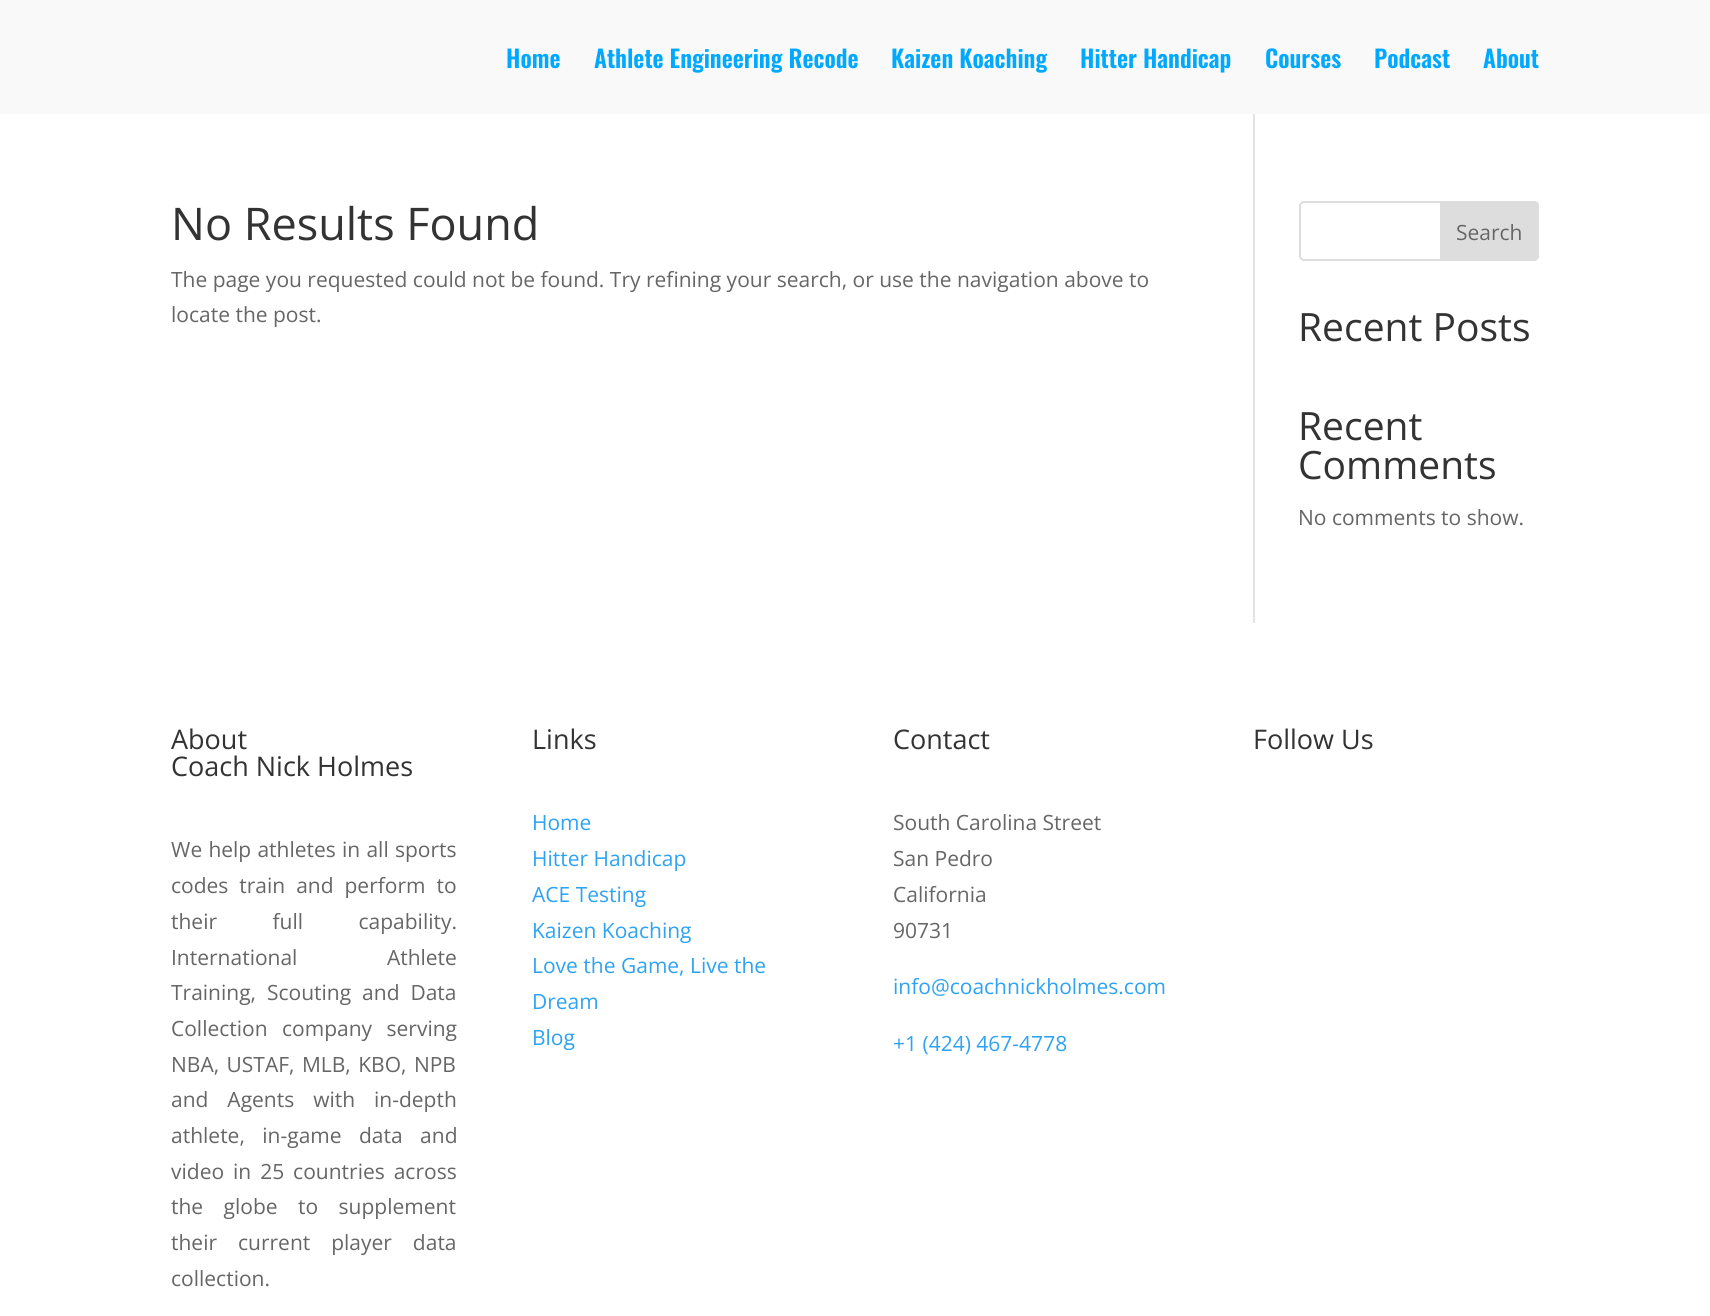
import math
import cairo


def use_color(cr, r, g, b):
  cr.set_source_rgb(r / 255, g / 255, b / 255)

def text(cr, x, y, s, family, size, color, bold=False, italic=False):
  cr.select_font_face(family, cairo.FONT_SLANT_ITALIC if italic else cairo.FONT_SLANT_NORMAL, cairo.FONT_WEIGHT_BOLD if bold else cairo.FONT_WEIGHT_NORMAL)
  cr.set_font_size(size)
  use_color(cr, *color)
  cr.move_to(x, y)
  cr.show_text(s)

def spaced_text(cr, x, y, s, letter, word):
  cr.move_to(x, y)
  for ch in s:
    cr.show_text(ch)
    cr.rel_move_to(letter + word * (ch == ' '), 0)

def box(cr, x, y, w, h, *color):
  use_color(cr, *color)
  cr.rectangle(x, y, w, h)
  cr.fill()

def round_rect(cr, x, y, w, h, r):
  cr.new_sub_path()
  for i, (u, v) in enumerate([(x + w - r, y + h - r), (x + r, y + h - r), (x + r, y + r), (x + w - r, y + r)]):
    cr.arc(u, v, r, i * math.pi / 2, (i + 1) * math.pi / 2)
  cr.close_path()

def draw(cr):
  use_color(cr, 255, 255, 255)
  cr.paint()
  box(cr, 0, 0, 1710, 114, 250, 249, 250)
  box(cr, 1253, 114, 2, 509, 226, 226, 226)
  round_rect(cr, 1300, 202, 238, 58, 4)
  use_color(cr, 221, 221, 221)
  cr.stroke()
  cr.new_path()
  cr.move_to(1441, 202)
  cr.line_to(1534, 202)
  cr.curve_to(1536, 202, 1538, 204, 1538, 206)
  cr.line_to(1538, 256)
  cr.curve_to(1538, 258, 1536, 260, 1534, 260)
  cr.line_to(1441, 260)
  cr.close_path()
  cr.fill_preserve()
  cr.stroke()
  text(cr, 506, 68, "Home", "Oswald SemiBold", 24, (0, 169, 255))
  text(cr, 594, 68, "Athlete Engineering Recode", "Oswald SemiBold", 24, (0, 169, 255))
  text(cr, 891, 68, "Kaizen Koaching", "Oswald SemiBold", 24, (0, 169, 255))
  text(cr, 1080, 68, "Hitter Handicap", "Oswald SemiBold", 24, (0, 169, 255))
  text(cr, 1265, 68, "Courses", "Oswald SemiBold", 24, (0, 169, 255))
  text(cr, 1374, 68, "Podcast", "Oswald SemiBold", 24, (0, 169, 255))
  text(cr, 1483, 68, "About", "Oswald SemiBold", 24, (0, 169, 255))
  text(cr, 171, 240, "No Results Found", "Open Sans", 45, (51, 51, 51))
  text(cr, 171, 287, "The page you requested could not be found. Try refining your search, or use the navigation above to", "Open Sans", 21, (102, 102, 102))
  text(cr, 171, 322, "locate the post.", "Open Sans", 21, (102, 102, 102))
  text(cr, 1456, 240, "Search", "Open Sans", 21, (102, 102, 102))
  text(cr, 1298, 341, "Recent Posts", "Open Sans", 39, (51, 51, 51))
  text(cr, 1298, 440, "Recent", "Open Sans", 39, (51, 51, 51))
  text(cr, 1298, 479, "Comments", "Open Sans", 39, (51, 51, 51))
  text(cr, 1298, 525, "No comments to show.", "Open Sans", 21, (102, 102, 102))
  text(cr, 171, 749, "About", "Open Sans", 27, (51, 51, 51))
  text(cr, 171, 776, "Coach Nick Holmes", "Open Sans", 27, (51, 51, 51))
  cr.set_font_size(21)
  use_color(cr, 102, 102, 102)
  spaced_text(cr, 171, 857, "We help athletes in all sports", 0, 0.75)
  spaced_text(cr, 171, 893, "codes train and perform to", 0, 5.5)
  spaced_text(cr, 171, 929, "their full capability.", 0, 50)
  spaced_text(cr, 171, 965, "International Athlete", 0, 84)
  spaced_text(cr, 171, 1000, "Training, Scouting and Data", 0, 5.5)
  spaced_text(cr, 171, 1036, "Collection company serving", 0, 9)
  spaced_text(cr, 171, 1072, "NBA, USTAF, MLB, KBO, NPB", 0, 2)
  spaced_text(cr, 171, 1107, "and Agents with in-depth", 0, 13.5)
  spaced_text(cr, 171, 1143, "athlete, in-game data and", 0, 12)
  spaced_text(cr, 171, 1179, "video in 25 countries across", 0, 3.5)
  spaced_text(cr, 171, 1214, "the globe to supplement", 0, 15)
  spaced_text(cr, 171, 1250, "their current player data", 0, 15.5)
  text(cr, 171, 1286, "collection.", "Open Sans", 21, (102, 102, 102))
  text(cr, 532, 749, "Links", "Open Sans", 27, (51, 51, 51))
  text(cr, 532, 830, "Home", "Open Sans", 21, (46, 163, 242))
  text(cr, 532, 866, "Hitter Handicap", "Open Sans", 21, (46, 163, 242))
  text(cr, 532, 902, "ACE Testing", "Open Sans", 21, (46, 163, 242))
  text(cr, 532, 938, "Kaizen Koaching", "Open Sans", 21, (46, 163, 242))
  text(cr, 532, 973, "Love the Game, Live the", "Open Sans", 21, (46, 163, 242))
  text(cr, 532, 1009, "Dream", "Open Sans", 21, (46, 163, 242))
  text(cr, 532, 1045, "Blog", "Open Sans", 21, (46, 163, 242))
  text(cr, 893, 749, "Contact", "Open Sans", 27, (51, 51, 51))
  text(cr, 893, 830, "South Carolina Street", "Open Sans", 21, (102, 102, 102))
  text(cr, 893, 866, "San Pedro", "Open Sans", 21, (102, 102, 102))
  text(cr, 893, 902, "California", "Open Sans", 21, (102, 102, 102))
  text(cr, 893, 938, "90731", "Open Sans", 21, (102, 102, 102))
  text(cr, 893, 994, "info@coachnickholmes.com", "Open Sans", 21, (46, 163, 242))
  text(cr, 893, 1051, "+1 (424) 467-4778", "Open Sans", 21, (46, 163, 242))
  text(cr, 1253, 749, "Follow Us", "Open Sans", 27, (51, 51, 51))


surface = cairo.ImageSurface(cairo.FORMAT_RGB24, 1710, 1316)
cr = cairo.Context(surface)
options = cairo.FontOptions()
options.set_hint_metrics(cairo.HINT_METRICS_OFF)
options.set_hint_style(cairo.HINT_STYLE_NONE)
cr.set_font_options(options)
cr.set_miter_limit(4)
draw(cr)
surface.write_to_png("out.png")
